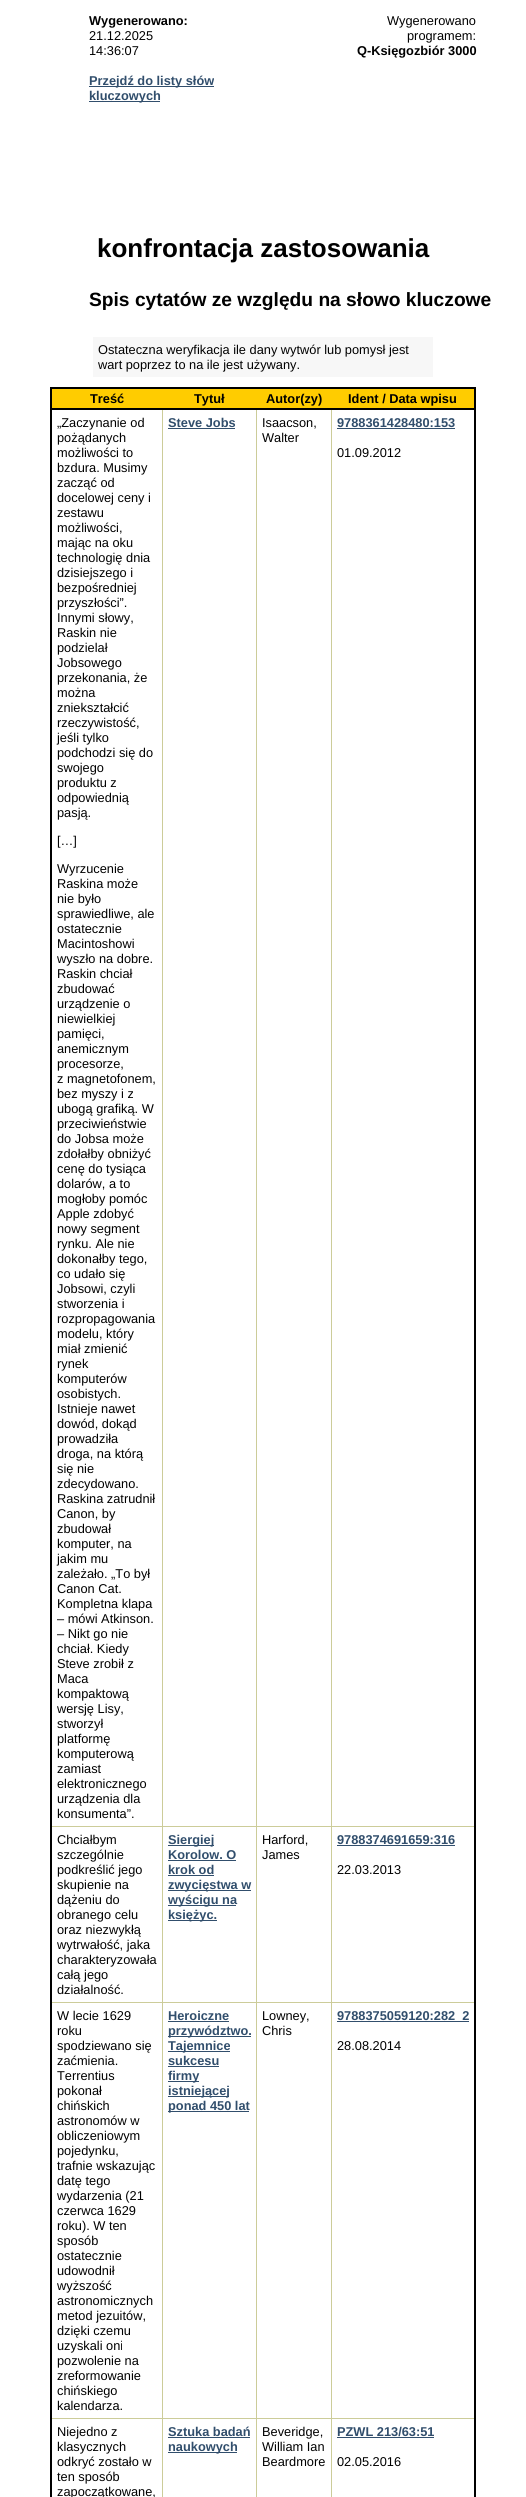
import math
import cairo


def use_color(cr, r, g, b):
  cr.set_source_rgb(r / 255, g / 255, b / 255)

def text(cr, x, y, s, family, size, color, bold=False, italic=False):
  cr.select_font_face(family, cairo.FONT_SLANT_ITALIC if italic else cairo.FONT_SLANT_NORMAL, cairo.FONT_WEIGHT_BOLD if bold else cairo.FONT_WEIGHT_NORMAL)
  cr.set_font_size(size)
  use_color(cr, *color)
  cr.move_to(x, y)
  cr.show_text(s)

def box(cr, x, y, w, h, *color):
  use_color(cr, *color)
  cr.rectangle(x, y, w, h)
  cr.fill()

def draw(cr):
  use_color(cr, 255, 255, 255)
  cr.paint()
  box(cr, 89, 86, 125, 1, 49, 78, 108)
  box(cr, 89, 101, 71, 1, 49, 78, 108)
  box(cr, 93, 337, 340, 40, 247, 247, 247)
  box(cr, 50, 387, 426, 2, 0, 0, 0)
  box(cr, 331, 1826, 145, 1, 204, 204, 153)
  box(cr, 331, 2002, 145, 1, 204, 204, 153)
  box(cr, 331, 2418, 145, 1, 204, 204, 153)
  box(cr, 474, 387, 2, 2110, 0, 0, 0)
  box(cr, 331, 2418, 1, 79, 204, 204, 153)
  box(cr, 256, 2418, 76, 1, 204, 204, 153)
  box(cr, 331, 2002, 1, 417, 204, 204, 153)
  box(cr, 256, 2002, 76, 1, 204, 204, 153)
  box(cr, 331, 1826, 1, 177, 204, 204, 153)
  box(cr, 256, 1826, 76, 1, 204, 204, 153)
  box(cr, 256, 2418, 1, 79, 204, 204, 153)
  box(cr, 162, 2418, 95, 1, 204, 204, 153)
  box(cr, 256, 2002, 1, 417, 204, 204, 153)
  box(cr, 162, 2002, 95, 1, 204, 204, 153)
  box(cr, 256, 1826, 1, 177, 204, 204, 153)
  box(cr, 162, 1826, 95, 1, 204, 204, 153)
  box(cr, 162, 2418, 1, 79, 204, 204, 153)
  box(cr, 50, 2418, 113, 1, 204, 204, 153)
  box(cr, 162, 2002, 1, 417, 204, 204, 153)
  box(cr, 50, 2002, 113, 1, 204, 204, 153)
  box(cr, 162, 1826, 1, 177, 204, 204, 153)
  box(cr, 50, 1826, 113, 1, 204, 204, 153)
  box(cr, 50, 387, 2, 2110, 0, 0, 0)
  box(cr, 52, 389, 422, 19, 255, 204, 0)
  box(cr, 162, 408, 1, 1419, 204, 204, 153)
  box(cr, 256, 408, 1, 1419, 204, 204, 153)
  box(cr, 331, 408, 1, 1419, 204, 204, 153)
  box(cr, 50, 408, 426, 2, 0, 0, 0)
  box(cr, 168, 428, 67, 1, 49, 78, 108)
  box(cr, 337, 428, 118, 1, 49, 78, 108)
  box(cr, 168, 1845, 46, 1, 49, 78, 108)
  box(cr, 168, 1860, 68, 1, 49, 78, 108)
  box(cr, 168, 1875, 46, 1, 49, 78, 108)
  box(cr, 168, 1890, 83, 1, 49, 78, 108)
  box(cr, 168, 1905, 68, 1, 49, 78, 108)
  box(cr, 168, 1920, 49, 1, 49, 78, 108)
  box(cr, 337, 1845, 118, 1, 49, 78, 108)
  box(cr, 168, 2021, 61, 1, 49, 78, 108)
  box(cr, 168, 2036, 83, 1, 49, 78, 108)
  box(cr, 168, 2051, 62, 1, 49, 78, 108)
  box(cr, 168, 2066, 51, 1, 49, 78, 108)
  box(cr, 168, 2081, 31, 1, 49, 78, 108)
  box(cr, 168, 2096, 61, 1, 49, 78, 108)
  box(cr, 168, 2111, 81, 1, 49, 78, 108)
  box(cr, 337, 2021, 132, 1, 49, 78, 108)
  box(cr, 168, 2437, 82, 1, 49, 78, 108)
  box(cr, 168, 2452, 69, 1, 49, 78, 108)
  box(cr, 337, 2437, 97, 1, 49, 78, 108)
  text(cr, 89, 25, "Wygenerowano:", "Liberation Sans", 12.8, (0, 0, 0), bold=True)
  text(cr, 89, 40, "21.12.2025", "Liberation Sans", 12.8, (0, 0, 0))
  text(cr, 89, 55, "14:36:07", "Liberation Sans", 12.8, (0, 0, 0))
  text(cr, 89, 85, "Przejdź do listy słów", "Liberation Sans", 12.8, (49, 78, 108), bold=True)
  text(cr, 89, 100, "kluczowych", "Liberation Sans", 12.8, (49, 78, 108), bold=True)
  text(cr, 387, 25, "Wygenerowano", "Liberation Sans", 12.8, (0, 0, 0))
  text(cr, 407, 40, "programem:", "Liberation Sans", 12.8, (0, 0, 0))
  text(cr, 357, 55, "Q-Księgozbiór 3000", "Liberation Sans", 12.8, (0, 0, 0), bold=True)
  text(cr, 97, 257, "konfrontacja zastosowania", "Liberation Sans", 26, (0, 0, 0), bold=True)
  text(cr, 89, 306, "Spis cytatów ze względu na słowo kluczowe", "Liberation Sans", 19.2, (0, 0, 0), bold=True)
  text(cr, 98, 354, "Ostateczna weryfikacja ile dany wytwór lub pomysł jest", "Liberation Sans", 12.8, (0, 0, 0))
  text(cr, 98, 369, "wart poprzez to na ile jest używany.", "Liberation Sans", 12.8, (0, 0, 0))
  text(cr, 90, 403, "Treść", "Liberation Sans", 12.8, (0, 0, 0), bold=True)
  text(cr, 194, 403, "Tytuł", "Liberation Sans", 12.8, (0, 0, 0), bold=True)
  text(cr, 266, 403, "Autor(zy)", "Liberation Sans", 12.8, (0, 0, 0), bold=True)
  text(cr, 348, 403, "Ident / Data wpisu", "Liberation Sans", 12.8, (0, 0, 0), bold=True)
  text(cr, 57, 427, "„Zaczynanie od", "Liberation Sans", 12.8, (0, 0, 0))
  text(cr, 57, 442, "pożądanych", "Liberation Sans", 12.8, (0, 0, 0))
  text(cr, 57, 457, "możliwości to", "Liberation Sans", 12.8, (0, 0, 0))
  text(cr, 57, 472, "bzdura. Musimy", "Liberation Sans", 12.8, (0, 0, 0))
  text(cr, 57, 487, "zacząć od", "Liberation Sans", 12.8, (0, 0, 0))
  text(cr, 57, 502, "docelowej ceny i", "Liberation Sans", 12.8, (0, 0, 0))
  text(cr, 57, 517, "zestawu", "Liberation Sans", 12.8, (0, 0, 0))
  text(cr, 57, 532, "możliwości,", "Liberation Sans", 12.8, (0, 0, 0))
  text(cr, 57, 547, "mając na oku", "Liberation Sans", 12.8, (0, 0, 0))
  text(cr, 57, 562, "technologię dnia", "Liberation Sans", 12.8, (0, 0, 0))
  text(cr, 57, 577, "dzisiejszego i", "Liberation Sans", 12.8, (0, 0, 0))
  text(cr, 57, 592, "bezpośredniej", "Liberation Sans", 12.8, (0, 0, 0))
  text(cr, 57, 607, "przyszłości”.", "Liberation Sans", 12.8, (0, 0, 0))
  text(cr, 57, 622, "Innymi słowy,", "Liberation Sans", 12.8, (0, 0, 0))
  text(cr, 57, 637, "Raskin nie", "Liberation Sans", 12.8, (0, 0, 0))
  text(cr, 57, 652, "podzielał", "Liberation Sans", 12.8, (0, 0, 0))
  text(cr, 57, 667, "Jobsowego", "Liberation Sans", 12.8, (0, 0, 0))
  text(cr, 57, 682, "przekonania, że", "Liberation Sans", 12.8, (0, 0, 0))
  text(cr, 57, 697, "można", "Liberation Sans", 12.8, (0, 0, 0))
  text(cr, 57, 712, "zniekształcić", "Liberation Sans", 12.8, (0, 0, 0))
  text(cr, 57, 727, "rzeczywistość,", "Liberation Sans", 12.8, (0, 0, 0))
  text(cr, 57, 742, "jeśli tylko", "Liberation Sans", 12.8, (0, 0, 0))
  text(cr, 57, 757, "podchodzi się do", "Liberation Sans", 12.8, (0, 0, 0))
  text(cr, 57, 772, "swojego", "Liberation Sans", 12.8, (0, 0, 0))
  text(cr, 57, 787, "produktu z", "Liberation Sans", 12.8, (0, 0, 0))
  text(cr, 57, 802, "odpowiednią", "Liberation Sans", 12.8, (0, 0, 0))
  text(cr, 57, 817, "pasją.", "Liberation Sans", 12.8, (0, 0, 0))
  text(cr, 57, 845, "[…]", "Liberation Sans", 12.8, (0, 0, 0))
  text(cr, 57, 873, "Wyrzucenie", "Liberation Sans", 12.8, (0, 0, 0))
  text(cr, 57, 888, "Raskina może", "Liberation Sans", 12.8, (0, 0, 0))
  text(cr, 57, 903, "nie było", "Liberation Sans", 12.8, (0, 0, 0))
  text(cr, 57, 918, "sprawiedliwe, ale", "Liberation Sans", 12.8, (0, 0, 0))
  text(cr, 57, 933, "ostatecznie", "Liberation Sans", 12.8, (0, 0, 0))
  text(cr, 57, 948, "Macintoshowi", "Liberation Sans", 12.8, (0, 0, 0))
  text(cr, 57, 963, "wyszło na dobre.", "Liberation Sans", 12.8, (0, 0, 0))
  text(cr, 57, 978, "Raskin chciał", "Liberation Sans", 12.8, (0, 0, 0))
  text(cr, 57, 993, "zbudować", "Liberation Sans", 12.8, (0, 0, 0))
  text(cr, 57, 1008, "urządzenie o", "Liberation Sans", 12.8, (0, 0, 0))
  text(cr, 57, 1023, "niewielkiej", "Liberation Sans", 12.8, (0, 0, 0))
  text(cr, 57, 1038, "pamięci,", "Liberation Sans", 12.8, (0, 0, 0))
  text(cr, 57, 1053, "anemicznym", "Liberation Sans", 12.8, (0, 0, 0))
  text(cr, 57, 1068, "procesorze,", "Liberation Sans", 12.8, (0, 0, 0))
  text(cr, 57, 1083, "z magnetofonem,", "Liberation Sans", 12.8, (0, 0, 0))
  text(cr, 57, 1098, "bez myszy i z", "Liberation Sans", 12.8, (0, 0, 0))
  text(cr, 57, 1113, "ubogą grafiką. W", "Liberation Sans", 12.8, (0, 0, 0))
  text(cr, 57, 1128, "przeciwieństwie", "Liberation Sans", 12.8, (0, 0, 0))
  text(cr, 57, 1143, "do Jobsa może", "Liberation Sans", 12.8, (0, 0, 0))
  text(cr, 57, 1158, "zdołałby obniżyć", "Liberation Sans", 12.8, (0, 0, 0))
  text(cr, 57, 1173, "cenę do tysiąca", "Liberation Sans", 12.8, (0, 0, 0))
  text(cr, 57, 1188, "dolarów, a to", "Liberation Sans", 12.8, (0, 0, 0))
  text(cr, 57, 1203, "mogłoby pomóc", "Liberation Sans", 12.8, (0, 0, 0))
  text(cr, 57, 1218, "Apple zdobyć", "Liberation Sans", 12.8, (0, 0, 0))
  text(cr, 57, 1233, "nowy segment", "Liberation Sans", 12.8, (0, 0, 0))
  text(cr, 57, 1248, "rynku. Ale nie", "Liberation Sans", 12.8, (0, 0, 0))
  text(cr, 57, 1263, "dokonałby tego,", "Liberation Sans", 12.8, (0, 0, 0))
  text(cr, 57, 1278, "co udało się", "Liberation Sans", 12.8, (0, 0, 0))
  text(cr, 57, 1293, "Jobsowi, czyli", "Liberation Sans", 12.8, (0, 0, 0))
  text(cr, 57, 1308, "stworzenia i", "Liberation Sans", 12.8, (0, 0, 0))
  text(cr, 57, 1323, "rozpropagowania", "Liberation Sans", 12.8, (0, 0, 0))
  text(cr, 57, 1338, "modelu, który", "Liberation Sans", 12.8, (0, 0, 0))
  text(cr, 57, 1353, "miał zmienić", "Liberation Sans", 12.8, (0, 0, 0))
  text(cr, 57, 1368, "rynek", "Liberation Sans", 12.8, (0, 0, 0))
  text(cr, 57, 1383, "komputerów", "Liberation Sans", 12.8, (0, 0, 0))
  text(cr, 57, 1398, "osobistych.", "Liberation Sans", 12.8, (0, 0, 0))
  text(cr, 57, 1413, "Istnieje nawet", "Liberation Sans", 12.8, (0, 0, 0))
  text(cr, 57, 1428, "dowód, dokąd", "Liberation Sans", 12.8, (0, 0, 0))
  text(cr, 57, 1443, "prowadziła", "Liberation Sans", 12.8, (0, 0, 0))
  text(cr, 57, 1458, "droga, na którą", "Liberation Sans", 12.8, (0, 0, 0))
  text(cr, 57, 1473, "się nie", "Liberation Sans", 12.8, (0, 0, 0))
  text(cr, 57, 1488, "zdecydowano.", "Liberation Sans", 12.8, (0, 0, 0))
  text(cr, 57, 1503, "Raskina zatrudnił", "Liberation Sans", 12.8, (0, 0, 0))
  text(cr, 57, 1518, "Canon, by", "Liberation Sans", 12.8, (0, 0, 0))
  text(cr, 57, 1533, "zbudował", "Liberation Sans", 12.8, (0, 0, 0))
  text(cr, 57, 1548, "komputer, na", "Liberation Sans", 12.8, (0, 0, 0))
  text(cr, 57, 1563, "jakim mu", "Liberation Sans", 12.8, (0, 0, 0))
  text(cr, 57, 1578, "zależało. „To był", "Liberation Sans", 12.8, (0, 0, 0))
  text(cr, 57, 1593, "Canon Cat.", "Liberation Sans", 12.8, (0, 0, 0))
  text(cr, 57, 1608, "Kompletna klapa", "Liberation Sans", 12.8, (0, 0, 0))
  text(cr, 57, 1623, "– mówi Atkinson.", "Liberation Sans", 12.8, (0, 0, 0))
  text(cr, 57, 1638, "– Nikt go nie", "Liberation Sans", 12.8, (0, 0, 0))
  text(cr, 57, 1653, "chciał. Kiedy", "Liberation Sans", 12.8, (0, 0, 0))
  text(cr, 57, 1668, "Steve zrobił z", "Liberation Sans", 12.8, (0, 0, 0))
  text(cr, 57, 1683, "Maca", "Liberation Sans", 12.8, (0, 0, 0))
  text(cr, 57, 1698, "kompaktową", "Liberation Sans", 12.8, (0, 0, 0))
  text(cr, 57, 1713, "wersję Lisy,", "Liberation Sans", 12.8, (0, 0, 0))
  text(cr, 57, 1728, "stworzył", "Liberation Sans", 12.8, (0, 0, 0))
  text(cr, 57, 1743, "platformę", "Liberation Sans", 12.8, (0, 0, 0))
  text(cr, 57, 1758, "komputerową", "Liberation Sans", 12.8, (0, 0, 0))
  text(cr, 57, 1773, "zamiast", "Liberation Sans", 12.8, (0, 0, 0))
  text(cr, 57, 1788, "elektronicznego", "Liberation Sans", 12.8, (0, 0, 0))
  text(cr, 57, 1803, "urządzenia dla", "Liberation Sans", 12.8, (0, 0, 0))
  text(cr, 57, 1818, "konsumenta”.", "Liberation Sans", 12.8, (0, 0, 0))
  text(cr, 168, 427, "Steve Jobs", "Liberation Sans", 12.8, (49, 78, 108), bold=True)
  text(cr, 262, 427, "Isaacson,", "Liberation Sans", 12.8, (0, 0, 0))
  text(cr, 262, 442, "Walter", "Liberation Sans", 12.8, (0, 0, 0))
  text(cr, 337, 427, "9788361428480:153", "Liberation Sans", 12.8, (49, 78, 108), bold=True)
  text(cr, 337, 457, "01.09.2012", "Liberation Sans", 12.8, (0, 0, 0))
  text(cr, 57, 1844, "Chciałbym", "Liberation Sans", 12.8, (0, 0, 0))
  text(cr, 57, 1859, "szczególnie", "Liberation Sans", 12.8, (0, 0, 0))
  text(cr, 57, 1874, "podkreślić jego", "Liberation Sans", 12.8, (0, 0, 0))
  text(cr, 57, 1889, "skupienie na", "Liberation Sans", 12.8, (0, 0, 0))
  text(cr, 57, 1904, "dążeniu do", "Liberation Sans", 12.8, (0, 0, 0))
  text(cr, 57, 1919, "obranego celu", "Liberation Sans", 12.8, (0, 0, 0))
  text(cr, 57, 1934, "oraz niezwykłą", "Liberation Sans", 12.8, (0, 0, 0))
  text(cr, 57, 1949, "wytrwałość, jaka", "Liberation Sans", 12.8, (0, 0, 0))
  text(cr, 57, 1964, "charakteryzowała", "Liberation Sans", 12.8, (0, 0, 0))
  text(cr, 57, 1979, "całą jego", "Liberation Sans", 12.8, (0, 0, 0))
  text(cr, 57, 1994, "działalność.", "Liberation Sans", 12.8, (0, 0, 0))
  text(cr, 168, 1844, "Siergiej", "Liberation Sans", 12.8, (49, 78, 108), bold=True)
  text(cr, 168, 1859, "Korolow. O", "Liberation Sans", 12.8, (49, 78, 108), bold=True)
  text(cr, 168, 1874, "krok od", "Liberation Sans", 12.8, (49, 78, 108), bold=True)
  text(cr, 168, 1889, "zwycięstwa w", "Liberation Sans", 12.8, (49, 78, 108), bold=True)
  text(cr, 168, 1904, "wyścigu na", "Liberation Sans", 12.8, (49, 78, 108), bold=True)
  text(cr, 168, 1919, "księżyc.", "Liberation Sans", 12.8, (49, 78, 108), bold=True)
  text(cr, 262, 1844, "Harford,", "Liberation Sans", 12.8, (0, 0, 0))
  text(cr, 262, 1859, "James", "Liberation Sans", 12.8, (0, 0, 0))
  text(cr, 337, 1844, "9788374691659:316", "Liberation Sans", 12.8, (49, 78, 108), bold=True)
  text(cr, 337, 1874, "22.03.2013", "Liberation Sans", 12.8, (0, 0, 0))
  text(cr, 57, 2020, "W lecie 1629", "Liberation Sans", 12.8, (0, 0, 0))
  text(cr, 57, 2035, "roku", "Liberation Sans", 12.8, (0, 0, 0))
  text(cr, 57, 2050, "spodziewano się", "Liberation Sans", 12.8, (0, 0, 0))
  text(cr, 57, 2065, "zaćmienia.", "Liberation Sans", 12.8, (0, 0, 0))
  text(cr, 57, 2080, "Terrentius", "Liberation Sans", 12.8, (0, 0, 0))
  text(cr, 57, 2095, "pokonał", "Liberation Sans", 12.8, (0, 0, 0))
  text(cr, 57, 2110, "chińskich", "Liberation Sans", 12.8, (0, 0, 0))
  text(cr, 57, 2125, "astronomów w", "Liberation Sans", 12.8, (0, 0, 0))
  text(cr, 57, 2140, "obliczeniowym", "Liberation Sans", 12.8, (0, 0, 0))
  text(cr, 57, 2155, "pojedynku,", "Liberation Sans", 12.8, (0, 0, 0))
  text(cr, 57, 2170, "trafnie wskazując", "Liberation Sans", 12.8, (0, 0, 0))
  text(cr, 57, 2185, "datę tego", "Liberation Sans", 12.8, (0, 0, 0))
  text(cr, 57, 2200, "wydarzenia (21", "Liberation Sans", 12.8, (0, 0, 0))
  text(cr, 57, 2215, "czerwca 1629", "Liberation Sans", 12.8, (0, 0, 0))
  text(cr, 57, 2230, "roku). W ten", "Liberation Sans", 12.8, (0, 0, 0))
  text(cr, 57, 2245, "sposób", "Liberation Sans", 12.8, (0, 0, 0))
  text(cr, 57, 2260, "ostatecznie", "Liberation Sans", 12.8, (0, 0, 0))
  text(cr, 57, 2275, "udowodnił", "Liberation Sans", 12.8, (0, 0, 0))
  text(cr, 57, 2290, "wyższość", "Liberation Sans", 12.8, (0, 0, 0))
  text(cr, 57, 2305, "astronomicznych", "Liberation Sans", 12.8, (0, 0, 0))
  text(cr, 57, 2320, "metod jezuitów,", "Liberation Sans", 12.8, (0, 0, 0))
  text(cr, 57, 2335, "dzięki czemu", "Liberation Sans", 12.8, (0, 0, 0))
  text(cr, 57, 2350, "uzyskali oni", "Liberation Sans", 12.8, (0, 0, 0))
  text(cr, 57, 2365, "pozwolenie na", "Liberation Sans", 12.8, (0, 0, 0))
  text(cr, 57, 2380, "zreformowanie", "Liberation Sans", 12.8, (0, 0, 0))
  text(cr, 57, 2395, "chińskiego", "Liberation Sans", 12.8, (0, 0, 0))
  text(cr, 57, 2410, "kalendarza.", "Liberation Sans", 12.8, (0, 0, 0))
  text(cr, 168, 2020, "Heroiczne", "Liberation Sans", 12.8, (49, 78, 108), bold=True)
  text(cr, 168, 2035, "przywództwo.", "Liberation Sans", 12.8, (49, 78, 108), bold=True)
  text(cr, 168, 2050, "Tajemnice", "Liberation Sans", 12.8, (49, 78, 108), bold=True)
  text(cr, 168, 2065, "sukcesu", "Liberation Sans", 12.8, (49, 78, 108), bold=True)
  text(cr, 168, 2080, "firmy", "Liberation Sans", 12.8, (49, 78, 108), bold=True)
  text(cr, 168, 2095, "istniejącej", "Liberation Sans", 12.8, (49, 78, 108), bold=True)
  text(cr, 168, 2110, "ponad 450 lat", "Liberation Sans", 12.8, (49, 78, 108), bold=True)
  text(cr, 262, 2020, "Lowney,", "Liberation Sans", 12.8, (0, 0, 0))
  text(cr, 262, 2035, "Chris", "Liberation Sans", 12.8, (0, 0, 0))
  text(cr, 337, 2020, "9788375059120:282_2", "Liberation Sans", 12.8, (49, 78, 108), bold=True)
  text(cr, 337, 2050, "28.08.2014", "Liberation Sans", 12.8, (0, 0, 0))
  text(cr, 57, 2436, "Niejedno z", "Liberation Sans", 12.8, (0, 0, 0))
  text(cr, 57, 2451, "klasycznych", "Liberation Sans", 12.8, (0, 0, 0))
  text(cr, 57, 2466, "odkryć zostało w", "Liberation Sans", 12.8, (0, 0, 0))
  text(cr, 57, 2481, "ten sposób", "Liberation Sans", 12.8, (0, 0, 0))
  text(cr, 57, 2496, "zapoczątkowane,", "Liberation Sans", 12.8, (0, 0, 0))
  text(cr, 168, 2436, "Sztuka badań", "Liberation Sans", 12.8, (49, 78, 108), bold=True)
  text(cr, 168, 2451, "naukowych", "Liberation Sans", 12.8, (49, 78, 108), bold=True)
  text(cr, 262, 2436, "Beveridge,", "Liberation Sans", 12.8, (0, 0, 0))
  text(cr, 262, 2451, "William Ian", "Liberation Sans", 12.8, (0, 0, 0))
  text(cr, 262, 2466, "Beardmore", "Liberation Sans", 12.8, (0, 0, 0))
  text(cr, 337, 2436, "PZWL 213/63:51", "Liberation Sans", 12.8, (49, 78, 108), bold=True)
  text(cr, 337, 2466, "02.05.2016", "Liberation Sans", 12.8, (0, 0, 0))


surface = cairo.ImageSurface(cairo.FORMAT_RGB24, 526, 2497)
cr = cairo.Context(surface)
options = cairo.FontOptions()
options.set_hint_metrics(cairo.HINT_METRICS_OFF)
options.set_hint_style(cairo.HINT_STYLE_NONE)
cr.set_font_options(options)
cr.set_miter_limit(4)
draw(cr)
surface.write_to_png("out.png")
